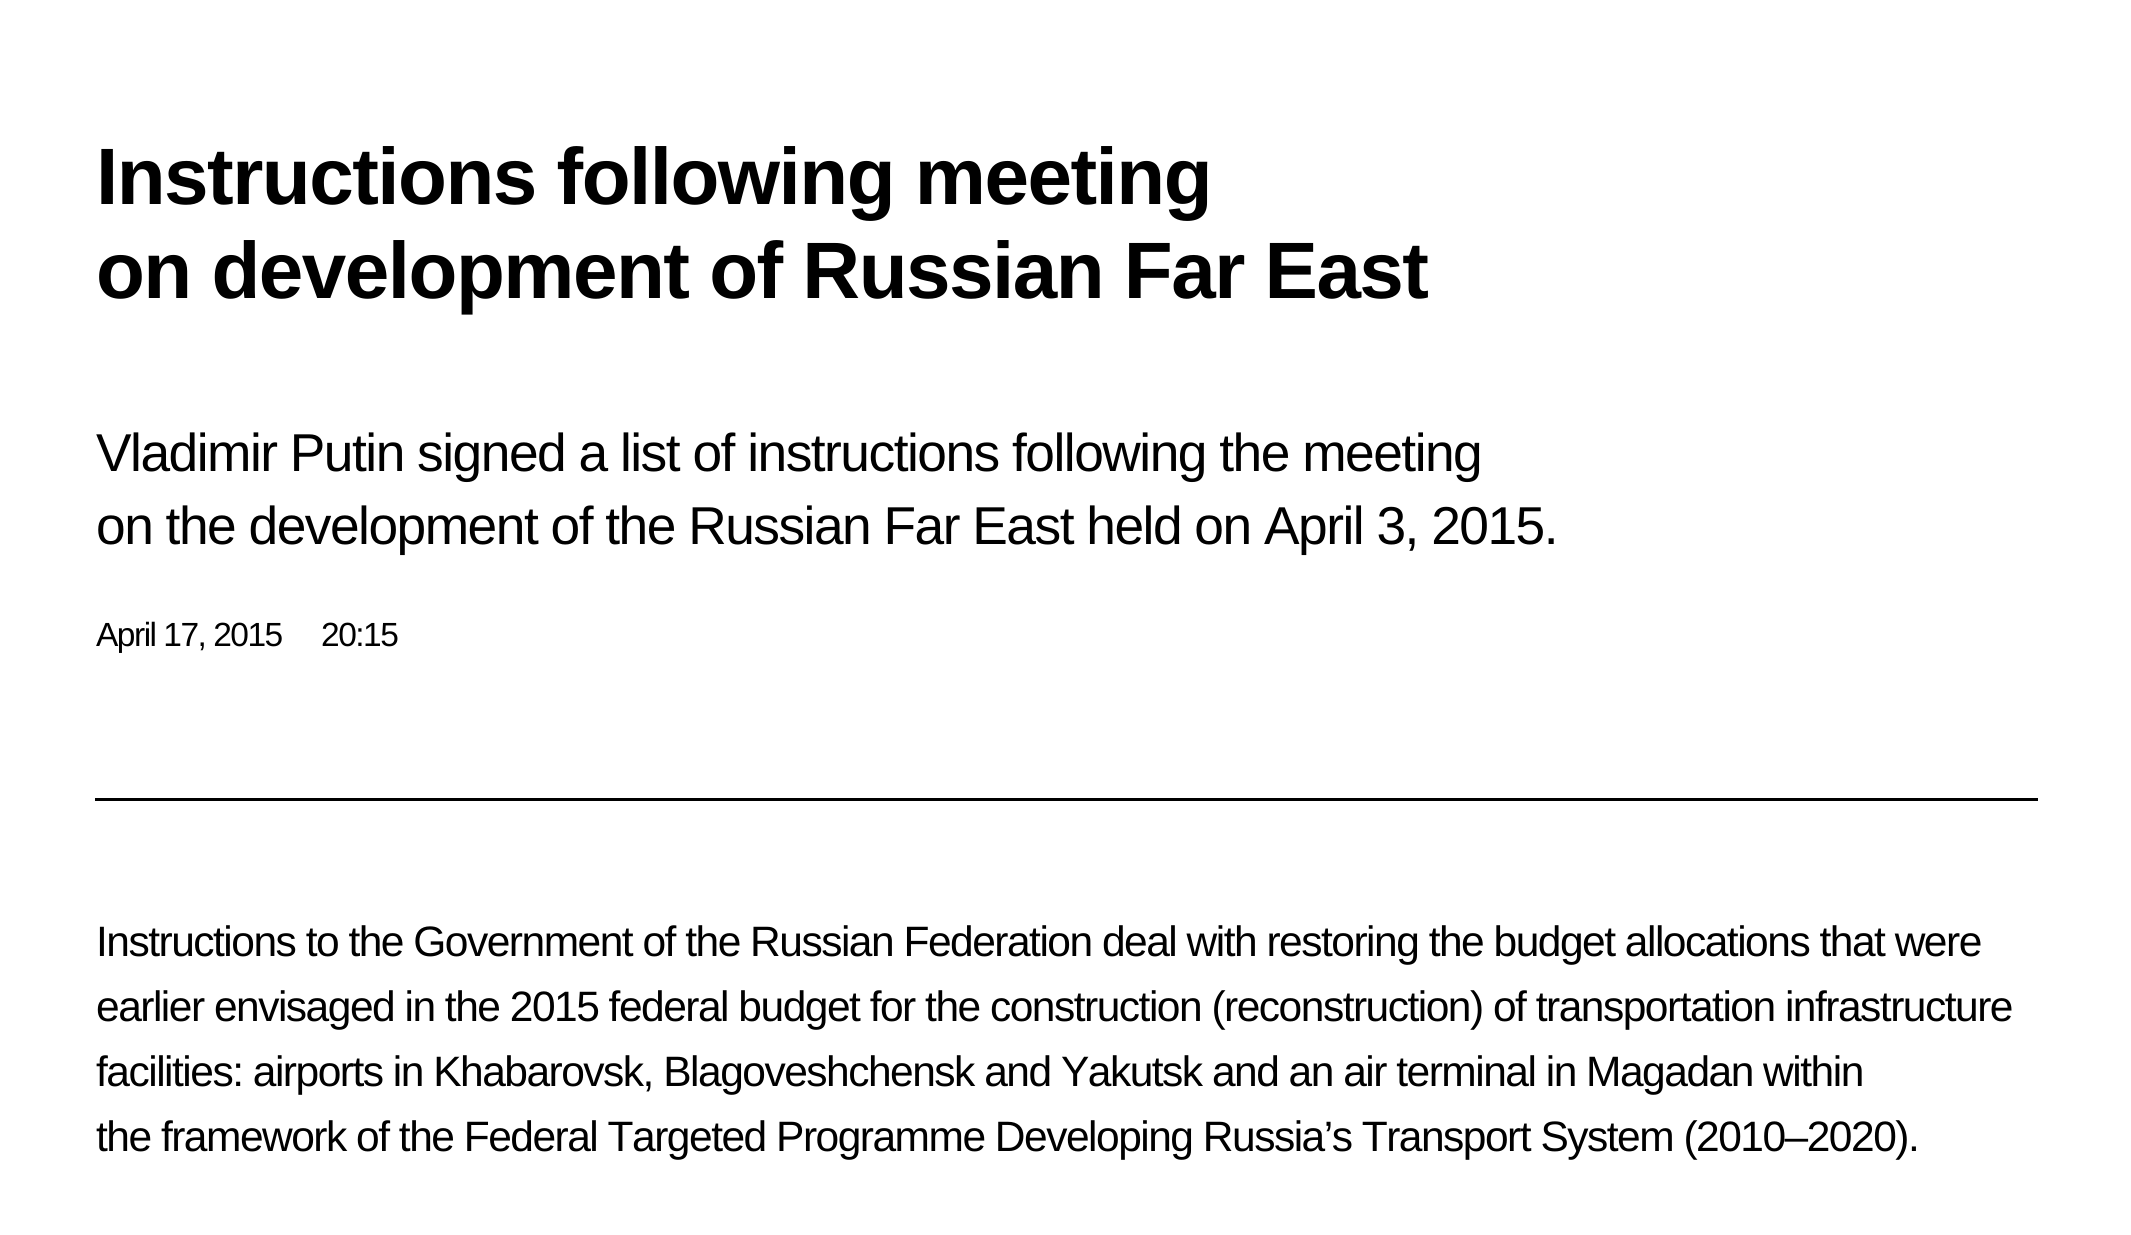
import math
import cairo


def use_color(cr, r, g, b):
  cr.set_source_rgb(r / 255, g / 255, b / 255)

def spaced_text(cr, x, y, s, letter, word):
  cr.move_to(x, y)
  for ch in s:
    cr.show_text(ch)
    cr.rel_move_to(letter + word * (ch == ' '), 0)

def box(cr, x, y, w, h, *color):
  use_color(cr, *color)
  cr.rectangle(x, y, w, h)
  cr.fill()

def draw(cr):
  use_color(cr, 255, 255, 255)
  cr.paint()
  box(cr, 95, 798, 1943, 3, 0, 0, 0)
  cr.select_font_face("Liberation Sans", cairo.FONT_SLANT_NORMAL, cairo.FONT_WEIGHT_BOLD)
  cr.set_font_size(80)
  spaced_text(cr, 96, 204, "Instructions following meeting", -1.5, 0)
  spaced_text(cr, 96, 298, "on development of Russian Far East", -1.5, 0)
  cr.select_font_face("Liberation Sans")
  cr.set_font_size(53.3)
  spaced_text(cr, 96, 471, "Vladimir Putin signed a list of instructions following the meeting", -1.5, 0)
  spaced_text(cr, 96, 544, "on the development of the Russian Far East held on April 3, 2015.", -1.5, 0)
  cr.set_font_size(33.5)
  spaced_text(cr, 96, 646, "April 17, 2015", -1.5, 0)
  spaced_text(cr, 321, 646, "20:15", -1.5, 0)
  cr.set_font_size(42.5)
  spaced_text(cr, 96, 956, "Instructions to the Government of the Russian Federation deal with restoring the budget allocations that were", -1.5, 0)
  spaced_text(cr, 96, 1021, "earlier envisaged in the 2015 federal budget for the construction (reconstruction) of transportation infrastructure", -1.5, 0)
  spaced_text(cr, 96, 1086, "facilities: airports in Khabarovsk, Blagoveshchensk and Yakutsk and an air terminal in Magadan within", -1.5, 0)
  spaced_text(cr, 96, 1151, "the framework of the Federal Targeted Programme Developing Russia’s Transport System (2010–2020).", -1.5, 0)


surface = cairo.ImageSurface(cairo.FORMAT_RGB24, 2131, 1235)
cr = cairo.Context(surface)
options = cairo.FontOptions()
options.set_hint_metrics(cairo.HINT_METRICS_OFF)
options.set_hint_style(cairo.HINT_STYLE_NONE)
cr.set_font_options(options)
cr.set_miter_limit(4)
draw(cr)
surface.write_to_png("out.png")
